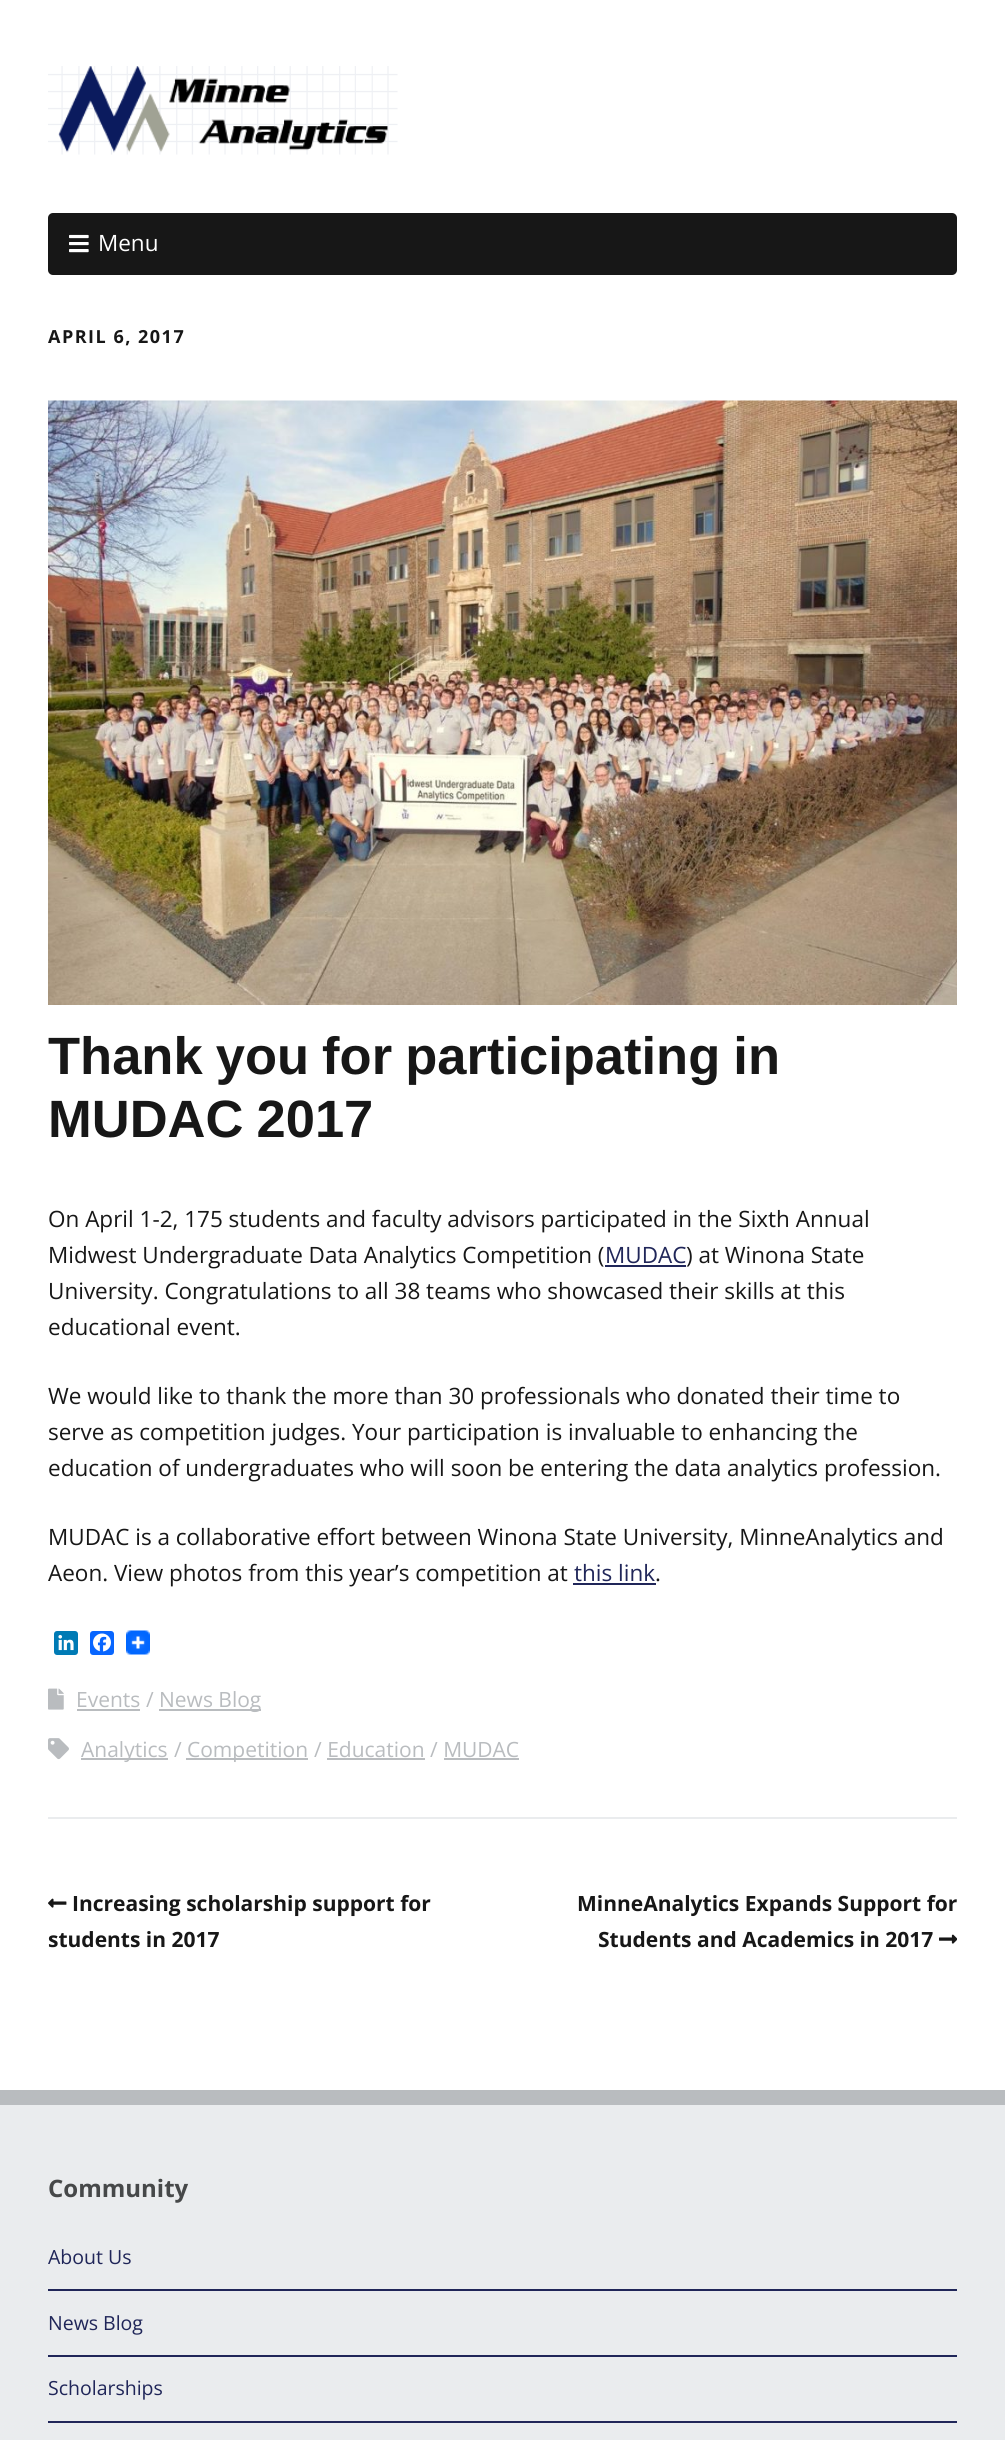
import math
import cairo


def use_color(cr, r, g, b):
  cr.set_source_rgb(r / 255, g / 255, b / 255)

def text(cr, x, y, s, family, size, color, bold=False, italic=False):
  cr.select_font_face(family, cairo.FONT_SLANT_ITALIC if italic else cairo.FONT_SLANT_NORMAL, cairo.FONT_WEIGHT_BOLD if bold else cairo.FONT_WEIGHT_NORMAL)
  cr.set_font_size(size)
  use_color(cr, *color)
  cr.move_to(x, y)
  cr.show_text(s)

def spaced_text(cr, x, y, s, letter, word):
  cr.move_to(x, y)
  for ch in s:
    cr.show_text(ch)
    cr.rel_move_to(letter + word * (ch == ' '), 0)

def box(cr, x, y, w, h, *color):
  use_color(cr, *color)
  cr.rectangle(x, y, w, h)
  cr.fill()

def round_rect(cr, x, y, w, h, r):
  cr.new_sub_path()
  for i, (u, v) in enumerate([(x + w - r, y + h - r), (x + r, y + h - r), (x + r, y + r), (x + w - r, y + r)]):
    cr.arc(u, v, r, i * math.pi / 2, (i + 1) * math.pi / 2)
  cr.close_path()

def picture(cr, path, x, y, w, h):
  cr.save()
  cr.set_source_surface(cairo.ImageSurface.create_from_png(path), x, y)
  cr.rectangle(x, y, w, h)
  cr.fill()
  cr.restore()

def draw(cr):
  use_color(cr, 185, 188, 191)
  cr.paint()
  box(cr, 0, 0, 1005, 2090, 255, 255, 255)
  picture(cr, "img_01.png", 48, 66, 350, 89)
  use_color(cr, 23, 23, 23)
  round_rect(cr, 48, 213, 909, 62, 5)
  cr.fill()
  picture(cr, "img_02.png", 69, 234, 20, 19)
  box(cr, 48, 1817, 909, 2, 234, 236, 238)
  picture(cr, "img_03.png", 48, 400, 909, 605)
  box(cr, 605, 1265, 81, 2, 32, 38, 89)
  box(cr, 573, 1583, 83, 2, 32, 38, 89)
  use_color(cr, 0, 123, 181)
  round_rect(cr, 54, 1631, 24, 24, 3)
  cr.fill()
  picture(cr, "img_04.png", 58, 1634, 16, 17)
  use_color(cr, 8, 102, 255)
  round_rect(cr, 90, 1631, 24, 24, 3)
  cr.fill()
  picture(cr, "img_05.png", 93, 1633, 18, 19)
  picture(cr, "img_06.png", 126, 1630, 24, 25)
  picture(cr, "img_07.png", 48, 1688, 16, 22)
  box(cr, 77, 1709, 63, 2, 185, 188, 191)
  box(cr, 159, 1709, 102, 2, 185, 188, 191)
  picture(cr, "img_08.png", 48, 1738, 21, 22)
  box(cr, 81, 1758, 87, 2, 185, 188, 191)
  box(cr, 186, 1758, 122, 2, 185, 188, 191)
  box(cr, 327, 1758, 98, 2, 185, 188, 191)
  box(cr, 444, 1758, 75, 2, 185, 188, 191)
  picture(cr, "img_09.png", 48, 1898, 19, 10)
  picture(cr, "img_10.png", 939, 1934, 18, 10)
  box(cr, 0, 2105, 1005, 335, 234, 236, 238)
  box(cr, 48, 2289, 909, 2, 32, 38, 89)
  box(cr, 48, 2355, 909, 2, 32, 38, 89)
  box(cr, 48, 2421, 909, 2, 32, 38, 89)
  text(cr, 98, 251, "Menu", "Open Sans", 22.5, (255, 255, 255))
  cr.select_font_face("Open Sans", cairo.FONT_SLANT_NORMAL, cairo.FONT_WEIGHT_BOLD)
  cr.set_font_size(18)
  use_color(cr, 23, 23, 23)
  spaced_text(cr, 48, 343, "APRIL 6, 2017", 1.5, 0)
  cr.select_font_face("Liberation Sans", cairo.FONT_SLANT_NORMAL, cairo.FONT_WEIGHT_BOLD)
  cr.set_font_size(52.5)
  spaced_text(cr, 48, 1074, "Thank you for participating in", 0, -1.5)
  spaced_text(cr, 48, 1137, "MUDAC 2017", 0, -1.5)
  text(cr, 48, 1227, "On April 1-2, 175 students and faculty advisors participated in the Sixth Annual", "Open Sans", 22.5, (23, 23, 23))
  text(cr, 48, 1263, "Midwest Undergraduate Data Analytics Competition (", "Open Sans", 22.5, (23, 23, 23))
  text(cr, 605, 1263, "MUDAC", "Open Sans", 22.5, (32, 38, 89))
  text(cr, 686, 1263, ") at Winona State", "Open Sans", 22.5, (23, 23, 23))
  text(cr, 48, 1299, "University. Congratulations to all 38 teams who showcased their skills at this", "Open Sans", 22.5, (23, 23, 23))
  text(cr, 48, 1335, "educational event.", "Open Sans", 22.5, (23, 23, 23))
  text(cr, 48, 1404, "We would like to thank the more than 30 professionals who donated their time to", "Open Sans", 22.5, (23, 23, 23))
  text(cr, 48, 1440, "serve as competition judges. Your participation is invaluable to enhancing the", "Open Sans", 22.5, (23, 23, 23))
  text(cr, 48, 1476, "education of undergraduates who will soon be entering the data analytics profession.", "Open Sans", 22.5, (23, 23, 23))
  text(cr, 48, 1545, "MUDAC is a collaborative effort between Winona State University, MinneAnalytics and", "Open Sans", 22.5, (23, 23, 23))
  text(cr, 48, 1581, "Aeon. View photos from this year’s competition at", "Open Sans", 22.5, (23, 23, 23))
  text(cr, 574, 1581, "this link", "Open Sans", 22.5, (32, 38, 89))
  text(cr, 655, 1581, ".", "Open Sans", 22.5, (23, 23, 23))
  text(cr, 76, 1707, "Events", "Open Sans", 21, (185, 188, 191))
  text(cr, 146, 1707, "/", "Open Sans", 21, (185, 188, 191))
  text(cr, 159, 1707, "News Blog", "Open Sans", 21, (185, 188, 191))
  text(cr, 81, 1757, "Analytics", "Open Sans", 21, (185, 188, 191))
  text(cr, 174, 1757, "/", "Open Sans", 21, (185, 188, 191))
  text(cr, 187, 1757, "Competition", "Open Sans", 21, (185, 188, 191))
  text(cr, 314, 1757, "/ Education", "Open Sans", 21, (185, 188, 191))
  text(cr, 430, 1757, "/ MUDAC", "Open Sans", 21, (185, 188, 191))
  text(cr, 72, 1911, "Increasing scholarship support for", "Open Sans", 21, (23, 23, 23), bold=True)
  text(cr, 48, 1947, "students in 2017", "Open Sans", 21, (23, 23, 23), bold=True)
  text(cr, 577, 1911, "MinneAnalytics Expands Support for", "Open Sans", 21, (23, 23, 23), bold=True)
  text(cr, 598, 1947, "Students and Academics in 2017", "Open Sans", 21, (23, 23, 23), bold=True)
  text(cr, 48, 2197, "Community", "Open Sans", 24, (70, 72, 73), bold=True)
  text(cr, 48, 2264, "About Us", "Open Sans", 19.5, (32, 38, 89))
  text(cr, 48, 2330, "News Blog", "Open Sans", 19.5, (32, 38, 89))
  text(cr, 48, 2395, "Scholarships", "Open Sans", 19.5, (32, 38, 89))


surface = cairo.ImageSurface(cairo.FORMAT_RGB24, 1005, 2440)
cr = cairo.Context(surface)
options = cairo.FontOptions()
options.set_hint_metrics(cairo.HINT_METRICS_OFF)
options.set_hint_style(cairo.HINT_STYLE_NONE)
cr.set_font_options(options)
cr.set_miter_limit(4)
draw(cr)
surface.write_to_png("out.png")
